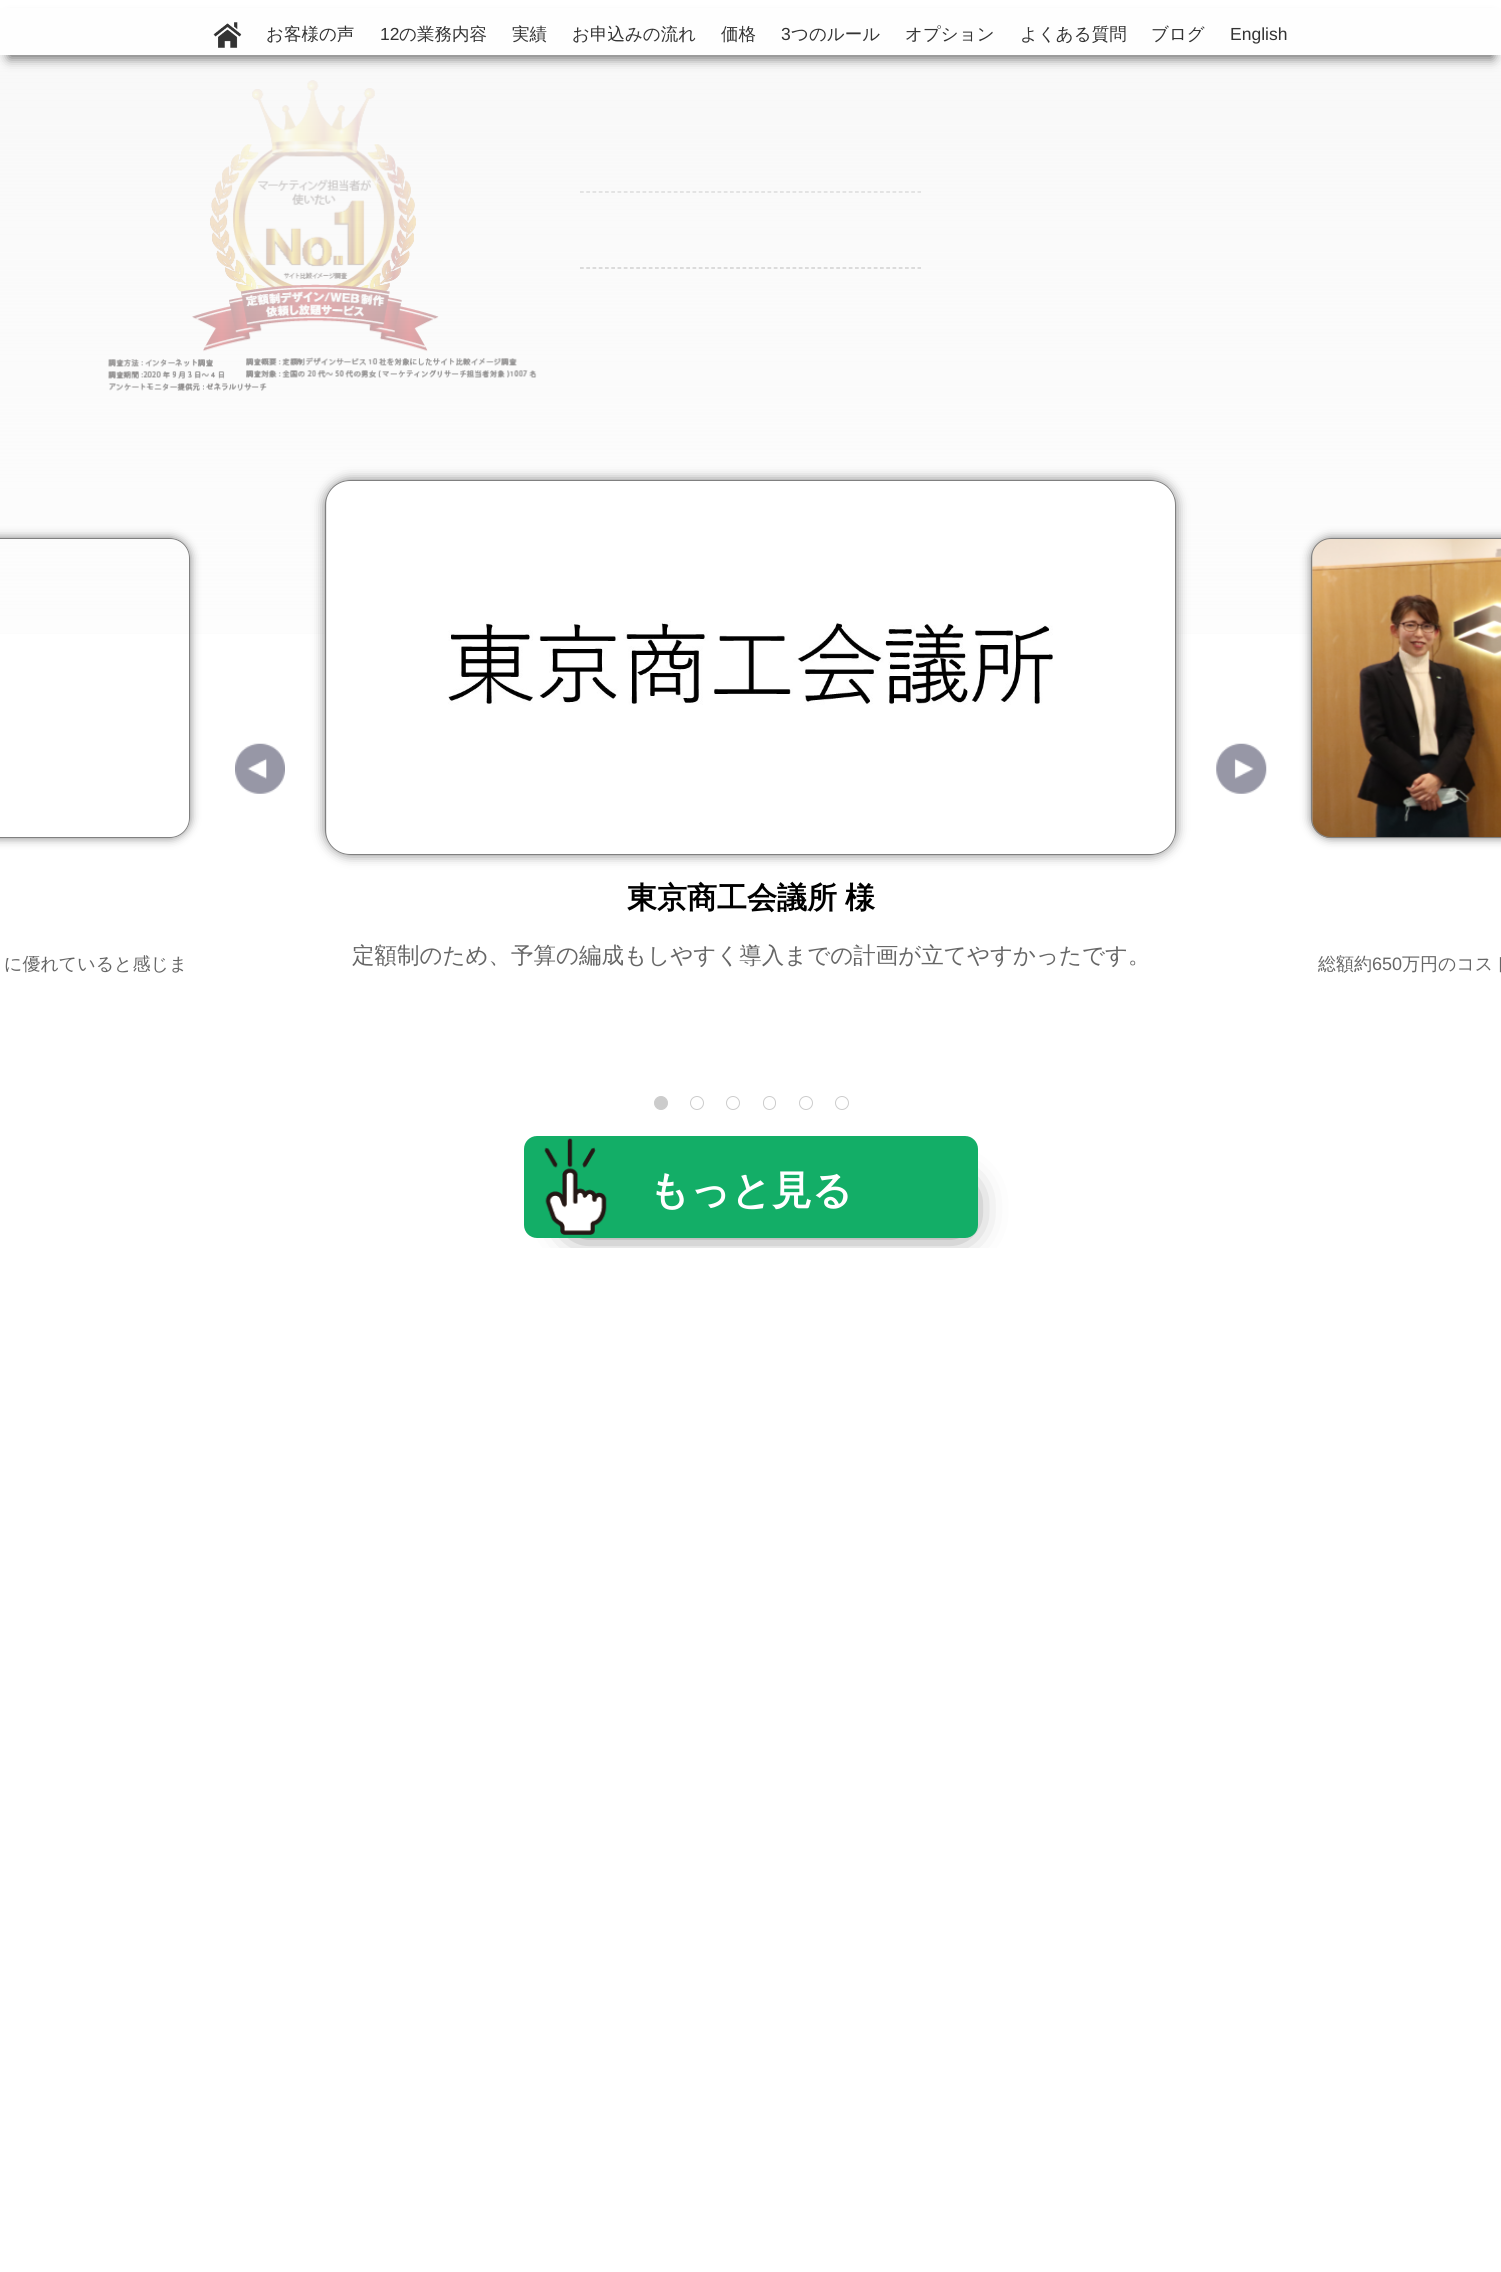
import math
import cairo


def use_color(cr, r, g, b):
  cr.set_source_rgb(r / 255, g / 255, b / 255)

def text(cr, x, y, s, family, size, color, bold=False, italic=False):
  cr.select_font_face(family, cairo.FONT_SLANT_ITALIC if italic else cairo.FONT_SLANT_NORMAL, cairo.FONT_WEIGHT_BOLD if bold else cairo.FONT_WEIGHT_NORMAL)
  cr.set_font_size(size)
  use_color(cr, *color)
  cr.move_to(x, y)
  cr.show_text(s)

def spaced_text(cr, x, y, s, letter, word):
  cr.move_to(x, y)
  for ch in s:
    cr.show_text(ch)
    cr.rel_move_to(letter + word * (ch == ' '), 0)

def box(cr, x, y, w, h, *color):
  use_color(cr, *color)
  cr.rectangle(x, y, w, h)
  cr.fill()

def round_rect(cr, x, y, w, h, r):
  cr.new_sub_path()
  for i, (u, v) in enumerate([(x + w - r, y + h - r), (x + r, y + h - r), (x + r, y + r), (x + w - r, y + r)]):
    cr.arc(u, v, r, i * math.pi / 2, (i + 1) * math.pi / 2)
  cr.close_path()

def shadow(cr, x, y, w, h, r, blur, alpha):
  cr.push_group_with_content(cairo.CONTENT_ALPHA)
  cr.set_operator(cairo.OPERATOR_SOURCE)
  for i in range(15, -16, -2):
    e = blur * i / 6
    if min(w, h) + 2 * e > 0:
      cr.set_source_rgba(0, 0, 0, alpha * math.erfc((i - 1) / 8.5) / 2)
      round_rect(cr, x - e, y - e, w + 2 * e, h + 2 * e, max(0, min(r + e + blur * .6, min(w, h) / 2 + e)))
      cr.fill()
  cr.mask(cr.pop_group())

def picture(cr, path, x, y, w, h):
  cr.save()
  cr.set_source_surface(cairo.ImageSurface.create_from_png(path), x, y)
  cr.rectangle(x, y, w, h)
  cr.fill()
  cr.restore()

def draw(cr):
  use_color(cr, 255, 255, 255)
  cr.paint()
  picture(cr, "img_02.png", 108, 80, 429, 311)
  cr.new_path()
  cr.move_to(580, 192)
  cr.line_to(921, 192)
  use_color(cr, 85, 85, 85)
  cr.set_line_width(1.2)
  cr.set_dash([3.75, 2.5])
  cr.stroke()
  cr.new_path()
  cr.move_to(580, 268)
  cr.line_to(921, 268)
  cr.stroke()
  gradient = cairo.LinearGradient(751, 0, 751, 1000)
  gradient.add_color_stop_rgba(0, 0.973, 0.973, 0.973, 1)
  gradient.add_color_stop_rgba(0.9, 0.973, 0.973, 0.973, 0)
  gradient.add_color_stop_rgba(0.9, 1, 1, 1, 0)
  gradient.add_color_stop_rgba(1, 1, 1, 1, 1)
  cr.set_source(gradient)
  cr.rectangle(0, 55, 1501, 579)
  cr.fill()
  use_color(cr, 0, 0, 0)
  shadow(cr, 9, 20, 1484, 38, 0, 6, 0.6)
  box(cr, 0, 8, 1501, 47, 254, 254, 254)
  picture(cr, "img_01.png", 213, 22, 29, 26)
  picture(cr, "img_03.png", 235, 743, 50, 51)
  picture(cr, "img_04.png", 1216, 743, 51, 51)
  cr.save()
  cr.set_fill_rule(cairo.FILL_RULE_EVEN_ODD)
  cr.new_path()
  cr.move_to(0, 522)
  cr.line_to(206, 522)
  cr.line_to(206, 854)
  cr.line_to(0, 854)
  cr.close_path()
  cr.move_to(-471, 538)
  cr.line_to(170, 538)
  cr.curve_to(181, 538, 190, 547, 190, 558)
  cr.line_to(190, 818)
  cr.curve_to(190, 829, 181, 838, 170, 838)
  cr.line_to(-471, 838)
  cr.curve_to(-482, 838, -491, 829, -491, 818)
  cr.line_to(-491, 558)
  cr.curve_to(-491, 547, -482, 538, -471, 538)
  cr.close_path()
  cr.clip()
  use_color(cr, 128, 128, 128)
  shadow(cr, -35, 538, 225, 300, 20, 5, 1)
  cr.restore()
  round_rect(cr, -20.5, 538.5, 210, 299, 19.5)
  use_color(cr, 128, 128, 128)
  cr.set_line_width(1)
  cr.set_dash([])
  cr.stroke()
  use_color(cr, 128, 128, 128)
  shadow(cr, 325, 480, 851, 375, 25, 6, 1)
  picture(cr, "img_05.png", 326, 480, 849, 375)
  round_rect(cr, 325.5, 480.5, 850, 374, 24.5)
  use_color(cr, 128, 128, 128)
  cr.stroke()
  use_color(cr, 128, 128, 128)
  shadow(cr, 1311, 538, 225, 300, 20, 5, 1)
  picture(cr, "img_06.png", 1312, 538, 189, 300)
  round_rect(cr, 1311.5, 538.5, 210, 299, 19.5)
  use_color(cr, 128, 128, 128)
  cr.stroke()
  use_color(cr, 204, 204, 204)
  cr.arc(661, 1103, 6.5, 0, 2 * math.pi)
  cr.fill_preserve()
  cr.stroke()
  cr.arc(697, 1103, 6.5, 0, 2 * math.pi)
  cr.stroke()
  cr.arc(733, 1103, 6.5, 0, 2 * math.pi)
  cr.stroke()
  round_rect(cr, 763.5, 1096.5, 12, 13, 6)
  cr.stroke()
  cr.arc(806, 1103, 6.5, 0, 2 * math.pi)
  cr.stroke()
  cr.arc(842, 1103, 6.5, 0, 2 * math.pi)
  cr.stroke()
  cr.save()
  cr.rectangle(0, 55, 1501, 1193)
  cr.clip()
  use_color(cr, 0, 0, 0)
  shadow(cr, 578, 1193, 383, 31, 0, 19, 1)
  cr.restore()
  use_color(cr, 19, 174, 103)
  round_rect(cr, 524, 1136, 454, 102, 13)
  cr.fill()
  picture(cr, "img_07.png", 544, 1138, 63, 97)
  text(cr, 266, 40, "お客様の声", "WenQuanYi Zen Hei Medium", 17.5, (51, 51, 51))
  text(cr, 380, 40, "12", "Liberation Sans", 17.5, (51, 51, 51))
  text(cr, 399, 40, "の業務内容", "WenQuanYi Zen Hei Medium", 17.5, (51, 51, 51))
  text(cr, 512, 40, "実績", "WenQuanYi Zen Hei Medium", 17.5, (51, 51, 51))
  text(cr, 572, 40, "お申込みの流れ", "WenQuanYi Zen Hei Medium", 17.5, (51, 51, 51))
  text(cr, 721, 40, "価格", "WenQuanYi Zen Hei Medium", 17.5, (51, 51, 51))
  text(cr, 781, 40, "3", "Liberation Sans", 17.5, (51, 51, 51))
  text(cr, 791, 40, "つのルール", "WenQuanYi Zen Hei Medium", 17.5, (51, 51, 51))
  text(cr, 905, 40, "オプション", "WenQuanYi Zen Hei Medium", 17.5, (51, 51, 51))
  text(cr, 1020, 40, "よくある質問", "WenQuanYi Zen Hei Medium", 17.5, (51, 51, 51))
  text(cr, 1151, 40, "ブログ", "WenQuanYi Zen Hei Medium", 17.5, (51, 51, 51))
  text(cr, 1230, 40, "English", "Liberation Sans", 17.5, (51, 51, 51))
  text(cr, 4, 970, "に優れていると感じま", "WenQuanYi Zen Hei Medium", 18, (102, 102, 102))
  cr.select_font_face("WenQuanYi Zen Hei", cairo.FONT_SLANT_NORMAL, cairo.FONT_WEIGHT_BOLD)
  cr.set_font_size(30)
  use_color(cr, 0, 0, 0)
  spaced_text(cr, 627, 908, "東京商工会議所 様", 0, -1)
  text(cr, 352, 963, "定額制のため、予算の編成もしやすく導入までの計画が立てやすかったです。", "WenQuanYi Zen Hei Medium", 22.5, (102, 102, 102))
  text(cr, 1318, 970, "総額約", "WenQuanYi Zen Hei Medium", 18, (102, 102, 102))
  text(cr, 1372, 970, "650", "Liberation Sans", 18, (102, 102, 102))
  text(cr, 1402, 970, "万円のコスト", "WenQuanYi Zen Hei Medium", 18, (102, 102, 102))
  text(cr, 649, 1204, "もっと見る", "WenQuanYi Zen Hei", 40, (255, 255, 255), bold=True)


surface = cairo.ImageSurface(cairo.FORMAT_RGB24, 1501, 2272)
cr = cairo.Context(surface)
options = cairo.FontOptions()
options.set_hint_metrics(cairo.HINT_METRICS_OFF)
options.set_hint_style(cairo.HINT_STYLE_NONE)
cr.set_font_options(options)
cr.set_miter_limit(4)
draw(cr)
surface.write_to_png("out.png")
